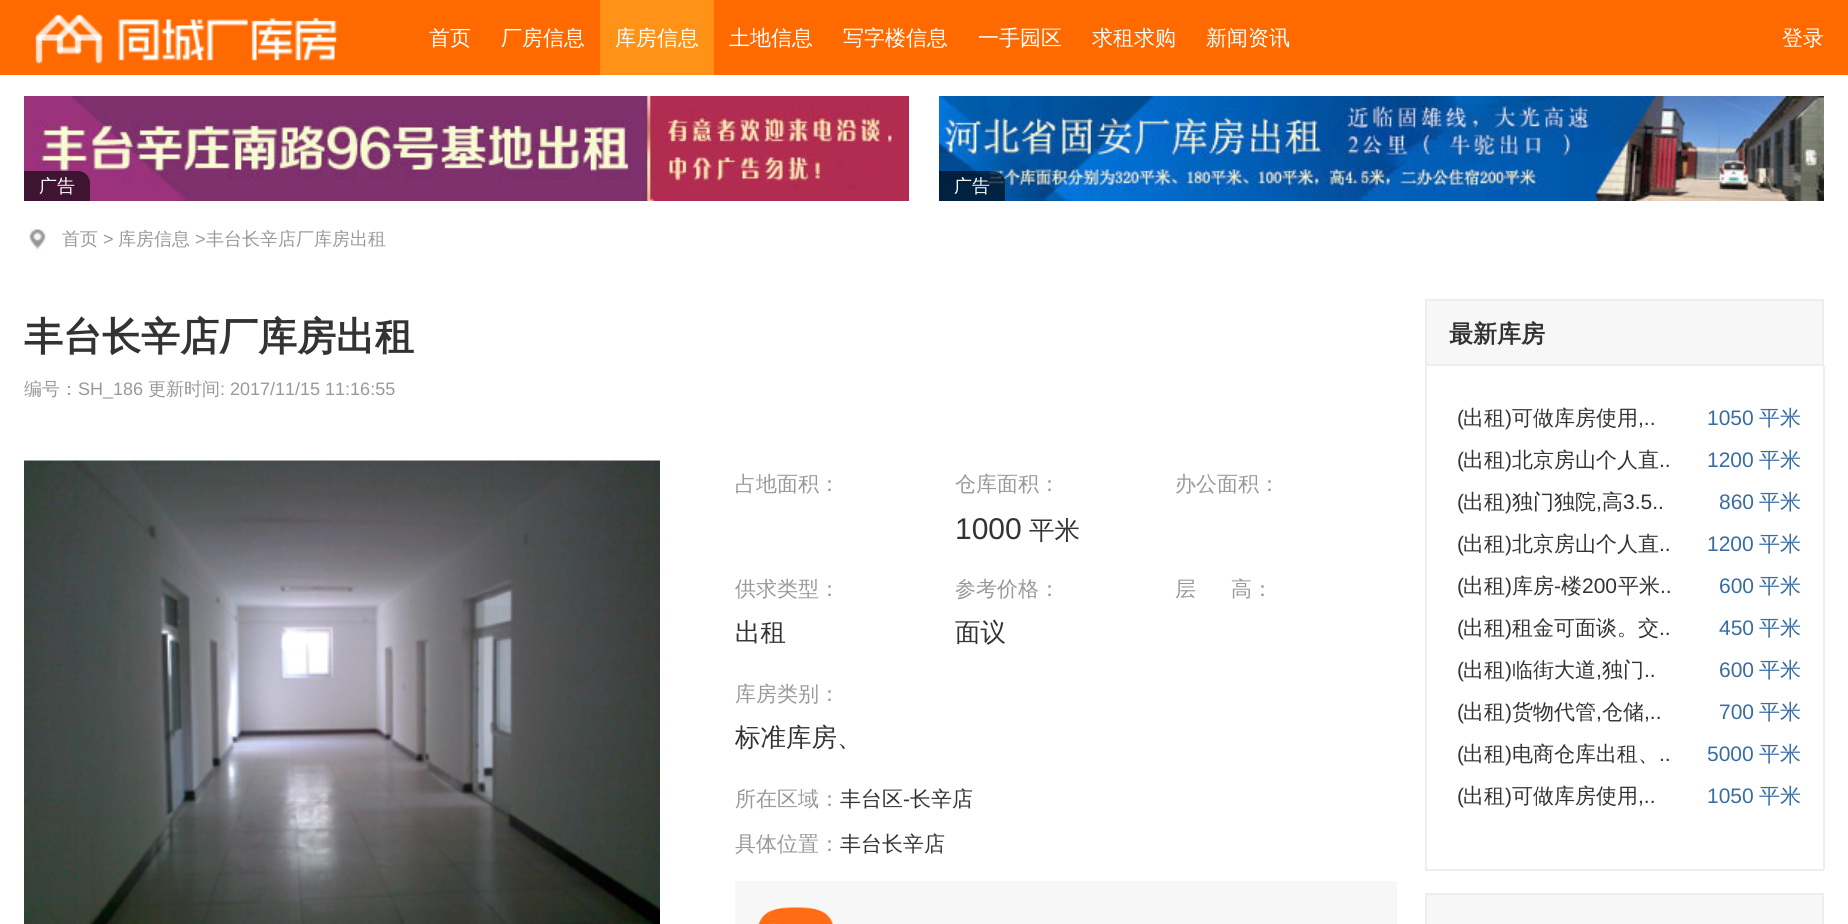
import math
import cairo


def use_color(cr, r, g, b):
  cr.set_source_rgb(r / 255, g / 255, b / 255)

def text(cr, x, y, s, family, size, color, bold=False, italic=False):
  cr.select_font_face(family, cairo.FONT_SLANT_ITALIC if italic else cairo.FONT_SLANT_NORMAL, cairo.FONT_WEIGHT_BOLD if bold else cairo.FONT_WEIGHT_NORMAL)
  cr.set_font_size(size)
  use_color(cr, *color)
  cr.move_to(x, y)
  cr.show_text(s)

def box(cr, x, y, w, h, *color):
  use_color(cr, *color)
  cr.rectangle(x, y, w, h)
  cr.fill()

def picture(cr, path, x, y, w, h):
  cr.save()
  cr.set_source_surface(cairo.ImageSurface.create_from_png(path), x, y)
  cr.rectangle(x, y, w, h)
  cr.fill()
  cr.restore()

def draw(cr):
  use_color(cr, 255, 255, 255)
  cr.paint()
  box(cr, 0, 0, 1848, 75, 255, 106, 0)
  picture(cr, "img_01.png", 35, 14, 302, 50)
  box(cr, 600, 0, 114, 75, 255, 146, 23)
  picture(cr, "img_02.png", 24, 96, 885, 105)
  cr.set_source_rgba(0, 0, 0, 0.6)
  cr.new_path()
  cr.move_to(24, 171)
  cr.line_to(78, 171)
  cr.curve_to(84.5, 171, 90, 176.5, 90, 183)
  cr.line_to(90, 201)
  cr.line_to(24, 201)
  cr.close_path()
  cr.fill()
  picture(cr, "img_03.png", 939, 96, 885, 105)
  cr.new_path()
  cr.move_to(939, 171)
  cr.line_to(993, 171)
  cr.curve_to(999.5, 171, 1005, 176.5, 1005, 183)
  cr.line_to(1005, 201)
  cr.line_to(939, 201)
  cr.close_path()
  cr.fill()
  picture(cr, "img_04.png", 29, 229, 17, 21)
  picture(cr, "img_05.png", 24, 460, 636, 464)
  box(cr, 735, 881, 662, 43, 247, 247, 247)
  picture(cr, "img_06.png", 758, 907, 75, 17)
  cr.rectangle(1426, 300, 397, 65)
  cr.fill_preserve()
  use_color(cr, 238, 238, 238)
  cr.stroke()
  box(cr, 1823, 366, 2, 504, 238, 238, 238)
  box(cr, 1425, 869, 399, 2, 238, 238, 238)
  box(cr, 1425, 366, 2, 504, 238, 238, 238)
  use_color(cr, 247, 247, 247)
  cr.rectangle(1426, 894, 397, 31)
  cr.fill_preserve()
  use_color(cr, 238, 238, 238)
  cr.stroke()
  text(cr, 429, 45, "首页", "WenQuanYi Zen Hei Medium", 21, (255, 255, 255))
  text(cr, 501, 45, "厂房信息", "WenQuanYi Zen Hei Medium", 21, (255, 255, 255))
  text(cr, 615, 45, "库房信息", "WenQuanYi Zen Hei Medium", 21, (255, 255, 255))
  text(cr, 729, 45, "土地信息", "WenQuanYi Zen Hei Medium", 21, (255, 255, 255))
  text(cr, 843, 45, "写字楼信息", "WenQuanYi Zen Hei Medium", 21, (255, 255, 255))
  text(cr, 978, 45, "一手园区", "WenQuanYi Zen Hei Medium", 21, (255, 255, 255))
  text(cr, 1092, 45, "求租求购", "WenQuanYi Zen Hei Medium", 21, (255, 255, 255))
  text(cr, 1206, 45, "新闻资讯", "WenQuanYi Zen Hei Medium", 21, (255, 255, 255))
  text(cr, 1782, 45, "登录", "WenQuanYi Zen Hei Medium", 21, (255, 255, 255))
  text(cr, 39, 192, "广告", "WenQuanYi Zen Hei Medium", 18, (255, 255, 255))
  text(cr, 954, 192, "广告", "WenQuanYi Zen Hei Medium", 18, (255, 255, 255))
  text(cr, 62, 245, "首页", "WenQuanYi Zen Hei Medium", 18, (153, 153, 153))
  text(cr, 103, 245, ">", "Liberation Sans", 18, (153, 153, 153))
  text(cr, 118, 245, "库房信息", "WenQuanYi Zen Hei Medium", 18, (153, 153, 153))
  text(cr, 195, 245, ">", "Liberation Sans", 18, (153, 153, 153))
  text(cr, 206, 245, "丰台长辛店厂库房出租", "WenQuanYi Zen Hei Medium", 18, (153, 153, 153))
  text(cr, 24, 350, "丰台长辛店厂库房出租", "WenQuanYi Zen Hei", 39, (51, 51, 51), bold=True)
  text(cr, 24, 395, "编号：", "WenQuanYi Zen Hei Medium", 18, (153, 153, 153))
  text(cr, 78, 395, "SH_186", "Liberation Sans", 18, (153, 153, 153))
  text(cr, 148, 395, "更新时间", "WenQuanYi Zen Hei Medium", 18, (153, 153, 153))
  text(cr, 220, 395, ": 2017/11/15 11:16:55", "Liberation Sans", 18, (153, 153, 153))
  text(cr, 735, 491, "占地面积：", "WenQuanYi Zen Hei Medium", 21, (153, 153, 153))
  text(cr, 955, 491, "仓库面积：", "WenQuanYi Zen Hei Medium", 21, (153, 153, 153))
  text(cr, 955, 539, "1000", "Liberation Sans", 30, (51, 51, 51))
  text(cr, 1029, 539, "平米", "WenQuanYi Zen Hei Medium", 25.5, (51, 51, 51))
  text(cr, 1175, 491, "办公面积：", "WenQuanYi Zen Hei Medium", 21, (153, 153, 153))
  text(cr, 735, 596, "供求类型：", "WenQuanYi Zen Hei Medium", 21, (153, 153, 153))
  text(cr, 735, 641, "出租", "WenQuanYi Zen Hei Medium", 25.5, (51, 51, 51))
  text(cr, 955, 596, "参考价格：", "WenQuanYi Zen Hei Medium", 21, (153, 153, 153))
  text(cr, 955, 641, "面议", "WenQuanYi Zen Hei Medium", 25.5, (51, 51, 51))
  text(cr, 1175, 596, "层", "WenQuanYi Zen Hei Medium", 21, (153, 153, 153))
  text(cr, 1231, 596, "高：", "WenQuanYi Zen Hei Medium", 21, (153, 153, 153))
  text(cr, 735, 701, "库房类别：", "WenQuanYi Zen Hei Medium", 21, (153, 153, 153))
  text(cr, 735, 746, "标准库房、", "WenQuanYi Zen Hei Medium", 25.5, (51, 51, 51))
  text(cr, 735, 806, "所在区域：", "WenQuanYi Zen Hei Medium", 21, (153, 153, 153))
  text(cr, 840, 806, "丰台区", "WenQuanYi Zen Hei Medium", 21, (51, 51, 51))
  text(cr, 903, 806, "-", "Liberation Sans", 21, (51, 51, 51))
  text(cr, 910, 806, "长辛店", "WenQuanYi Zen Hei Medium", 21, (51, 51, 51))
  text(cr, 735, 851, "具体位置：", "WenQuanYi Zen Hei Medium", 21, (153, 153, 153))
  text(cr, 840, 851, "丰台长辛店", "WenQuanYi Zen Hei Medium", 21, (51, 51, 51))
  text(cr, 1449, 342, "最新库房", "WenQuanYi Zen Hei", 24, (51, 51, 51), bold=True)
  text(cr, 1457, 425, "(", "Liberation Sans", 21, (51, 51, 51))
  text(cr, 1463, 425, "出租", "WenQuanYi Zen Hei Medium", 21, (51, 51, 51))
  text(cr, 1505, 425, ")", "Liberation Sans", 21, (51, 51, 51))
  text(cr, 1512, 425, "可做库房使用", "WenQuanYi Zen Hei Medium", 21, (51, 51, 51))
  text(cr, 1638, 425, ",..", "Liberation Sans", 21, (51, 51, 51))
  text(cr, 1707, 425, "1050", "Liberation Sans", 21, (56, 108, 163))
  text(cr, 1759, 425, "平米", "WenQuanYi Zen Hei Medium", 21, (56, 108, 163))
  text(cr, 1457, 467, "(", "Liberation Sans", 21, (51, 51, 51))
  text(cr, 1463, 467, "出租", "WenQuanYi Zen Hei Medium", 21, (51, 51, 51))
  text(cr, 1505, 467, ")", "Liberation Sans", 21, (51, 51, 51))
  text(cr, 1512, 467, "北京房山个人直", "WenQuanYi Zen Hei Medium", 21, (51, 51, 51))
  text(cr, 1659, 467, "..", "Liberation Sans", 21, (51, 51, 51))
  text(cr, 1707, 467, "1200", "Liberation Sans", 21, (56, 108, 163))
  text(cr, 1759, 467, "平米", "WenQuanYi Zen Hei Medium", 21, (56, 108, 163))
  text(cr, 1457, 509, "(", "Liberation Sans", 21, (51, 51, 51))
  text(cr, 1463, 509, "出租", "WenQuanYi Zen Hei Medium", 21, (51, 51, 51))
  text(cr, 1505, 509, ")", "Liberation Sans", 21, (51, 51, 51))
  text(cr, 1512, 509, "独门独院", "WenQuanYi Zen Hei Medium", 21, (51, 51, 51))
  text(cr, 1596, 509, ",", "Liberation Sans", 21, (51, 51, 51))
  text(cr, 1602, 509, "高", "WenQuanYi Zen Hei Medium", 21, (51, 51, 51))
  text(cr, 1623, 509, "3.5..", "Liberation Sans", 21, (51, 51, 51))
  text(cr, 1719, 509, "860", "Liberation Sans", 21, (56, 108, 163))
  text(cr, 1759, 509, "平米", "WenQuanYi Zen Hei Medium", 21, (56, 108, 163))
  text(cr, 1457, 551, "(", "Liberation Sans", 21, (51, 51, 51))
  text(cr, 1463, 551, "出租", "WenQuanYi Zen Hei Medium", 21, (51, 51, 51))
  text(cr, 1505, 551, ")", "Liberation Sans", 21, (51, 51, 51))
  text(cr, 1512, 551, "北京房山个人直", "WenQuanYi Zen Hei Medium", 21, (51, 51, 51))
  text(cr, 1659, 551, "..", "Liberation Sans", 21, (51, 51, 51))
  text(cr, 1707, 551, "1200", "Liberation Sans", 21, (56, 108, 163))
  text(cr, 1759, 551, "平米", "WenQuanYi Zen Hei Medium", 21, (56, 108, 163))
  text(cr, 1457, 593, "(", "Liberation Sans", 21, (51, 51, 51))
  text(cr, 1463, 593, "出租", "WenQuanYi Zen Hei Medium", 21, (51, 51, 51))
  text(cr, 1505, 593, ")", "Liberation Sans", 21, (51, 51, 51))
  text(cr, 1512, 593, "库房", "WenQuanYi Zen Hei Medium", 21, (51, 51, 51))
  text(cr, 1554, 593, "-", "Liberation Sans", 21, (51, 51, 51))
  text(cr, 1561, 593, "楼", "WenQuanYi Zen Hei Medium", 21, (51, 51, 51))
  text(cr, 1582, 593, "200", "Liberation Sans", 21, (51, 51, 51))
  text(cr, 1618, 593, "平米", "WenQuanYi Zen Hei Medium", 21, (51, 51, 51))
  text(cr, 1660, 593, "..", "Liberation Sans", 21, (51, 51, 51))
  text(cr, 1719, 593, "600", "Liberation Sans", 21, (56, 108, 163))
  text(cr, 1759, 593, "平米", "WenQuanYi Zen Hei Medium", 21, (56, 108, 163))
  text(cr, 1457, 635, "(", "Liberation Sans", 21, (51, 51, 51))
  text(cr, 1463, 635, "出租", "WenQuanYi Zen Hei Medium", 21, (51, 51, 51))
  text(cr, 1505, 635, ")", "Liberation Sans", 21, (51, 51, 51))
  text(cr, 1512, 635, "租金可面谈。交", "WenQuanYi Zen Hei Medium", 21, (51, 51, 51))
  text(cr, 1659, 635, "..", "Liberation Sans", 21, (51, 51, 51))
  text(cr, 1719, 635, "450", "Liberation Sans", 21, (56, 108, 163))
  text(cr, 1759, 635, "平米", "WenQuanYi Zen Hei Medium", 21, (56, 108, 163))
  text(cr, 1457, 677, "(", "Liberation Sans", 21, (51, 51, 51))
  text(cr, 1463, 677, "出租", "WenQuanYi Zen Hei Medium", 21, (51, 51, 51))
  text(cr, 1505, 677, ")", "Liberation Sans", 21, (51, 51, 51))
  text(cr, 1512, 677, "临街大道", "WenQuanYi Zen Hei Medium", 21, (51, 51, 51))
  text(cr, 1596, 677, ",", "Liberation Sans", 21, (51, 51, 51))
  text(cr, 1602, 677, "独门", "WenQuanYi Zen Hei Medium", 21, (51, 51, 51))
  text(cr, 1644, 677, "..", "Liberation Sans", 21, (51, 51, 51))
  text(cr, 1719, 677, "600", "Liberation Sans", 21, (56, 108, 163))
  text(cr, 1759, 677, "平米", "WenQuanYi Zen Hei Medium", 21, (56, 108, 163))
  text(cr, 1457, 719, "(", "Liberation Sans", 21, (51, 51, 51))
  text(cr, 1463, 719, "出租", "WenQuanYi Zen Hei Medium", 21, (51, 51, 51))
  text(cr, 1505, 719, ")", "Liberation Sans", 21, (51, 51, 51))
  text(cr, 1512, 719, "货物代管", "WenQuanYi Zen Hei Medium", 21, (51, 51, 51))
  text(cr, 1596, 719, ",", "Liberation Sans", 21, (51, 51, 51))
  text(cr, 1602, 719, "仓储", "WenQuanYi Zen Hei Medium", 21, (51, 51, 51))
  text(cr, 1644, 719, ",..", "Liberation Sans", 21, (51, 51, 51))
  text(cr, 1719, 719, "700", "Liberation Sans", 21, (56, 108, 163))
  text(cr, 1759, 719, "平米", "WenQuanYi Zen Hei Medium", 21, (56, 108, 163))
  text(cr, 1457, 761, "(", "Liberation Sans", 21, (51, 51, 51))
  text(cr, 1463, 761, "出租", "WenQuanYi Zen Hei Medium", 21, (51, 51, 51))
  text(cr, 1505, 761, ")", "Liberation Sans", 21, (51, 51, 51))
  text(cr, 1512, 761, "电商仓库出租、", "WenQuanYi Zen Hei Medium", 21, (51, 51, 51))
  text(cr, 1659, 761, "..", "Liberation Sans", 21, (51, 51, 51))
  text(cr, 1707, 761, "5000", "Liberation Sans", 21, (56, 108, 163))
  text(cr, 1759, 761, "平米", "WenQuanYi Zen Hei Medium", 21, (56, 108, 163))
  text(cr, 1457, 803, "(", "Liberation Sans", 21, (51, 51, 51))
  text(cr, 1463, 803, "出租", "WenQuanYi Zen Hei Medium", 21, (51, 51, 51))
  text(cr, 1505, 803, ")", "Liberation Sans", 21, (51, 51, 51))
  text(cr, 1512, 803, "可做库房使用", "WenQuanYi Zen Hei Medium", 21, (51, 51, 51))
  text(cr, 1638, 803, ",..", "Liberation Sans", 21, (51, 51, 51))
  text(cr, 1707, 803, "1050", "Liberation Sans", 21, (56, 108, 163))
  text(cr, 1759, 803, "平米", "WenQuanYi Zen Hei Medium", 21, (56, 108, 163))


surface = cairo.ImageSurface(cairo.FORMAT_RGB24, 1848, 924)
cr = cairo.Context(surface)
options = cairo.FontOptions()
options.set_hint_metrics(cairo.HINT_METRICS_OFF)
options.set_hint_style(cairo.HINT_STYLE_NONE)
cr.set_font_options(options)
cr.set_miter_limit(4)
draw(cr)
surface.write_to_png("out.png")
